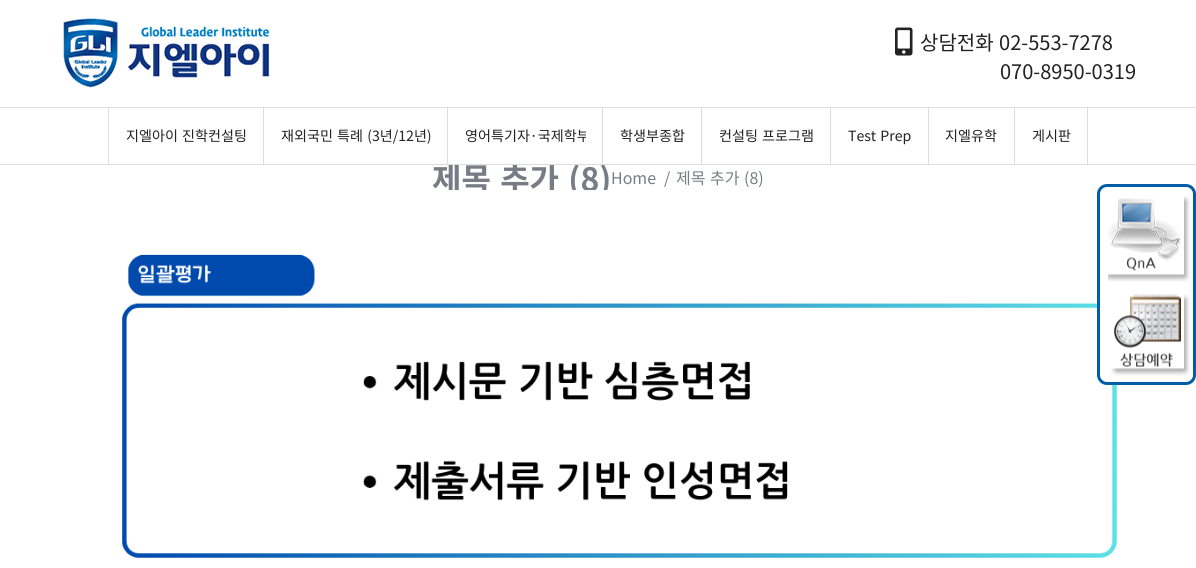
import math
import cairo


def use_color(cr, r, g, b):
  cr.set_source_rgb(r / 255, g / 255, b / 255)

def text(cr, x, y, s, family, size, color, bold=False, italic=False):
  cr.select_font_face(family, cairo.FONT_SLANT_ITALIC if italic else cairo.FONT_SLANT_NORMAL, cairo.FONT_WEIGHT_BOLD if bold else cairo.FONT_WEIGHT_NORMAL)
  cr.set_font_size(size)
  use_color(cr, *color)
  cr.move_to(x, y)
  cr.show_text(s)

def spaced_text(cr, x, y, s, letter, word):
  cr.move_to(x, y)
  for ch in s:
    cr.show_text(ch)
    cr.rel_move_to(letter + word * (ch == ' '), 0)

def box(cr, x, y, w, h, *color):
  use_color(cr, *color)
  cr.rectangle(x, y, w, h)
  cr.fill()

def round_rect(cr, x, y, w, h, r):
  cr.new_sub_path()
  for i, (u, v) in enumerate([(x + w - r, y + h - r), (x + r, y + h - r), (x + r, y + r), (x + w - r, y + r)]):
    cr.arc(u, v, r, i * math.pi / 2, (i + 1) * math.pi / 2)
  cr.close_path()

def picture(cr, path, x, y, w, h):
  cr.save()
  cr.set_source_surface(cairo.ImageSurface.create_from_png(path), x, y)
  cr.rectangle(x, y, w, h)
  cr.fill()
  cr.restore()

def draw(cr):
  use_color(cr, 255, 255, 255)
  cr.paint()
  picture(cr, "img_01.png", 63, 18, 207, 70)
  picture(cr, "img_02.png", 895, 27, 18, 29)
  box(cr, 0, 107, 1196, 1, 221, 221, 221)
  box(cr, 0, 164, 1196, 1, 221, 221, 221)
  box(cr, 263, 108, 1, 56, 221, 221, 221)
  box(cr, 108, 108, 1, 56, 221, 221, 221)
  box(cr, 447, 108, 1, 56, 221, 221, 221)
  box(cr, 602, 108, 1, 56, 221, 221, 221)
  box(cr, 701, 108, 1, 56, 221, 221, 221)
  box(cr, 830, 108, 1, 56, 221, 221, 221)
  box(cr, 928, 108, 1, 56, 221, 221, 221)
  box(cr, 1014, 108, 1, 56, 221, 221, 221)
  box(cr, 1087, 108, 1, 56, 221, 221, 221)
  picture(cr, "img_03.png", 122, 254, 995, 304)
  use_color(cr, 255, 255, 255)
  round_rect(cr, 1098.5, 185.5, 96, 198, 8.5)
  cr.fill_preserve()
  use_color(cr, 0, 93, 168)
  cr.set_line_width(3)
  cr.stroke()
  picture(cr, "img_04.png", 1108, 196, 82, 86)
  picture(cr, "img_05.png", 1111, 294, 82, 83)
  cr.select_font_face("Noto Sans KR")
  cr.set_font_size(20)
  use_color(cr, 34, 34, 34)
  spaced_text(cr, 920, 50, "상담전화 02-553-7278", 0, 1)
  text(cr, 1000, 79, "070-8950-0319", "Noto Sans KR", 20, (34, 34, 34))
  cr.set_font_size(14.1)
  spaced_text(cr, 126, 141, "지엘아이 진학컨설팅", 0, 1)
  spaced_text(cr, 281, 141, "재외국민 특례 (3년/12년)", 0, 1)
  cr.save()
  cr.rectangle(465, 123, 121, 26)
  cr.clip()
  text(cr, 465, 141, "영어특기자·국제학부", "Noto Sans KR", 14.1, (34, 34, 34))
  cr.restore()
  text(cr, 620, 141, "학생부종합", "Noto Sans KR", 14.1, (34, 34, 34))
  spaced_text(cr, 719, 141, "컨설팅 프로그램", 0, 1)
  spaced_text(cr, 848, 141, "Test Prep", 0, 1)
  text(cr, 945, 141, "지엘유학", "Noto Sans KR", 14.1, (34, 34, 34))
  text(cr, 1032, 141, "게시판", "Noto Sans KR", 14.1, (34, 34, 34))
  cr.save()
  cr.rectangle(432, 165, 179, 25)
  cr.clip()
  cr.select_font_face("Noto Sans KR", cairo.FONT_SLANT_NORMAL, cairo.FONT_WEIGHT_BOLD)
  cr.set_font_size(32)
  use_color(cr, 120, 125, 133)
  spaced_text(cr, 432, 191, "제목 추가 (8)", 0, 2)
  cr.restore()
  text(cr, 611, 184, "Home", "Noto Sans KR", 16, (120, 125, 133))
  text(cr, 664, 184, "/", "Noto Sans KR", 16, (120, 125, 133))
  spaced_text(cr, 676, 184, "제목 추가 (8)", 0, 1)


surface = cairo.ImageSurface(cairo.FORMAT_RGB24, 1196, 568)
cr = cairo.Context(surface)
options = cairo.FontOptions()
options.set_hint_metrics(cairo.HINT_METRICS_OFF)
options.set_hint_style(cairo.HINT_STYLE_NONE)
cr.set_font_options(options)
cr.set_miter_limit(4)
draw(cr)
surface.write_to_png("out.png")
